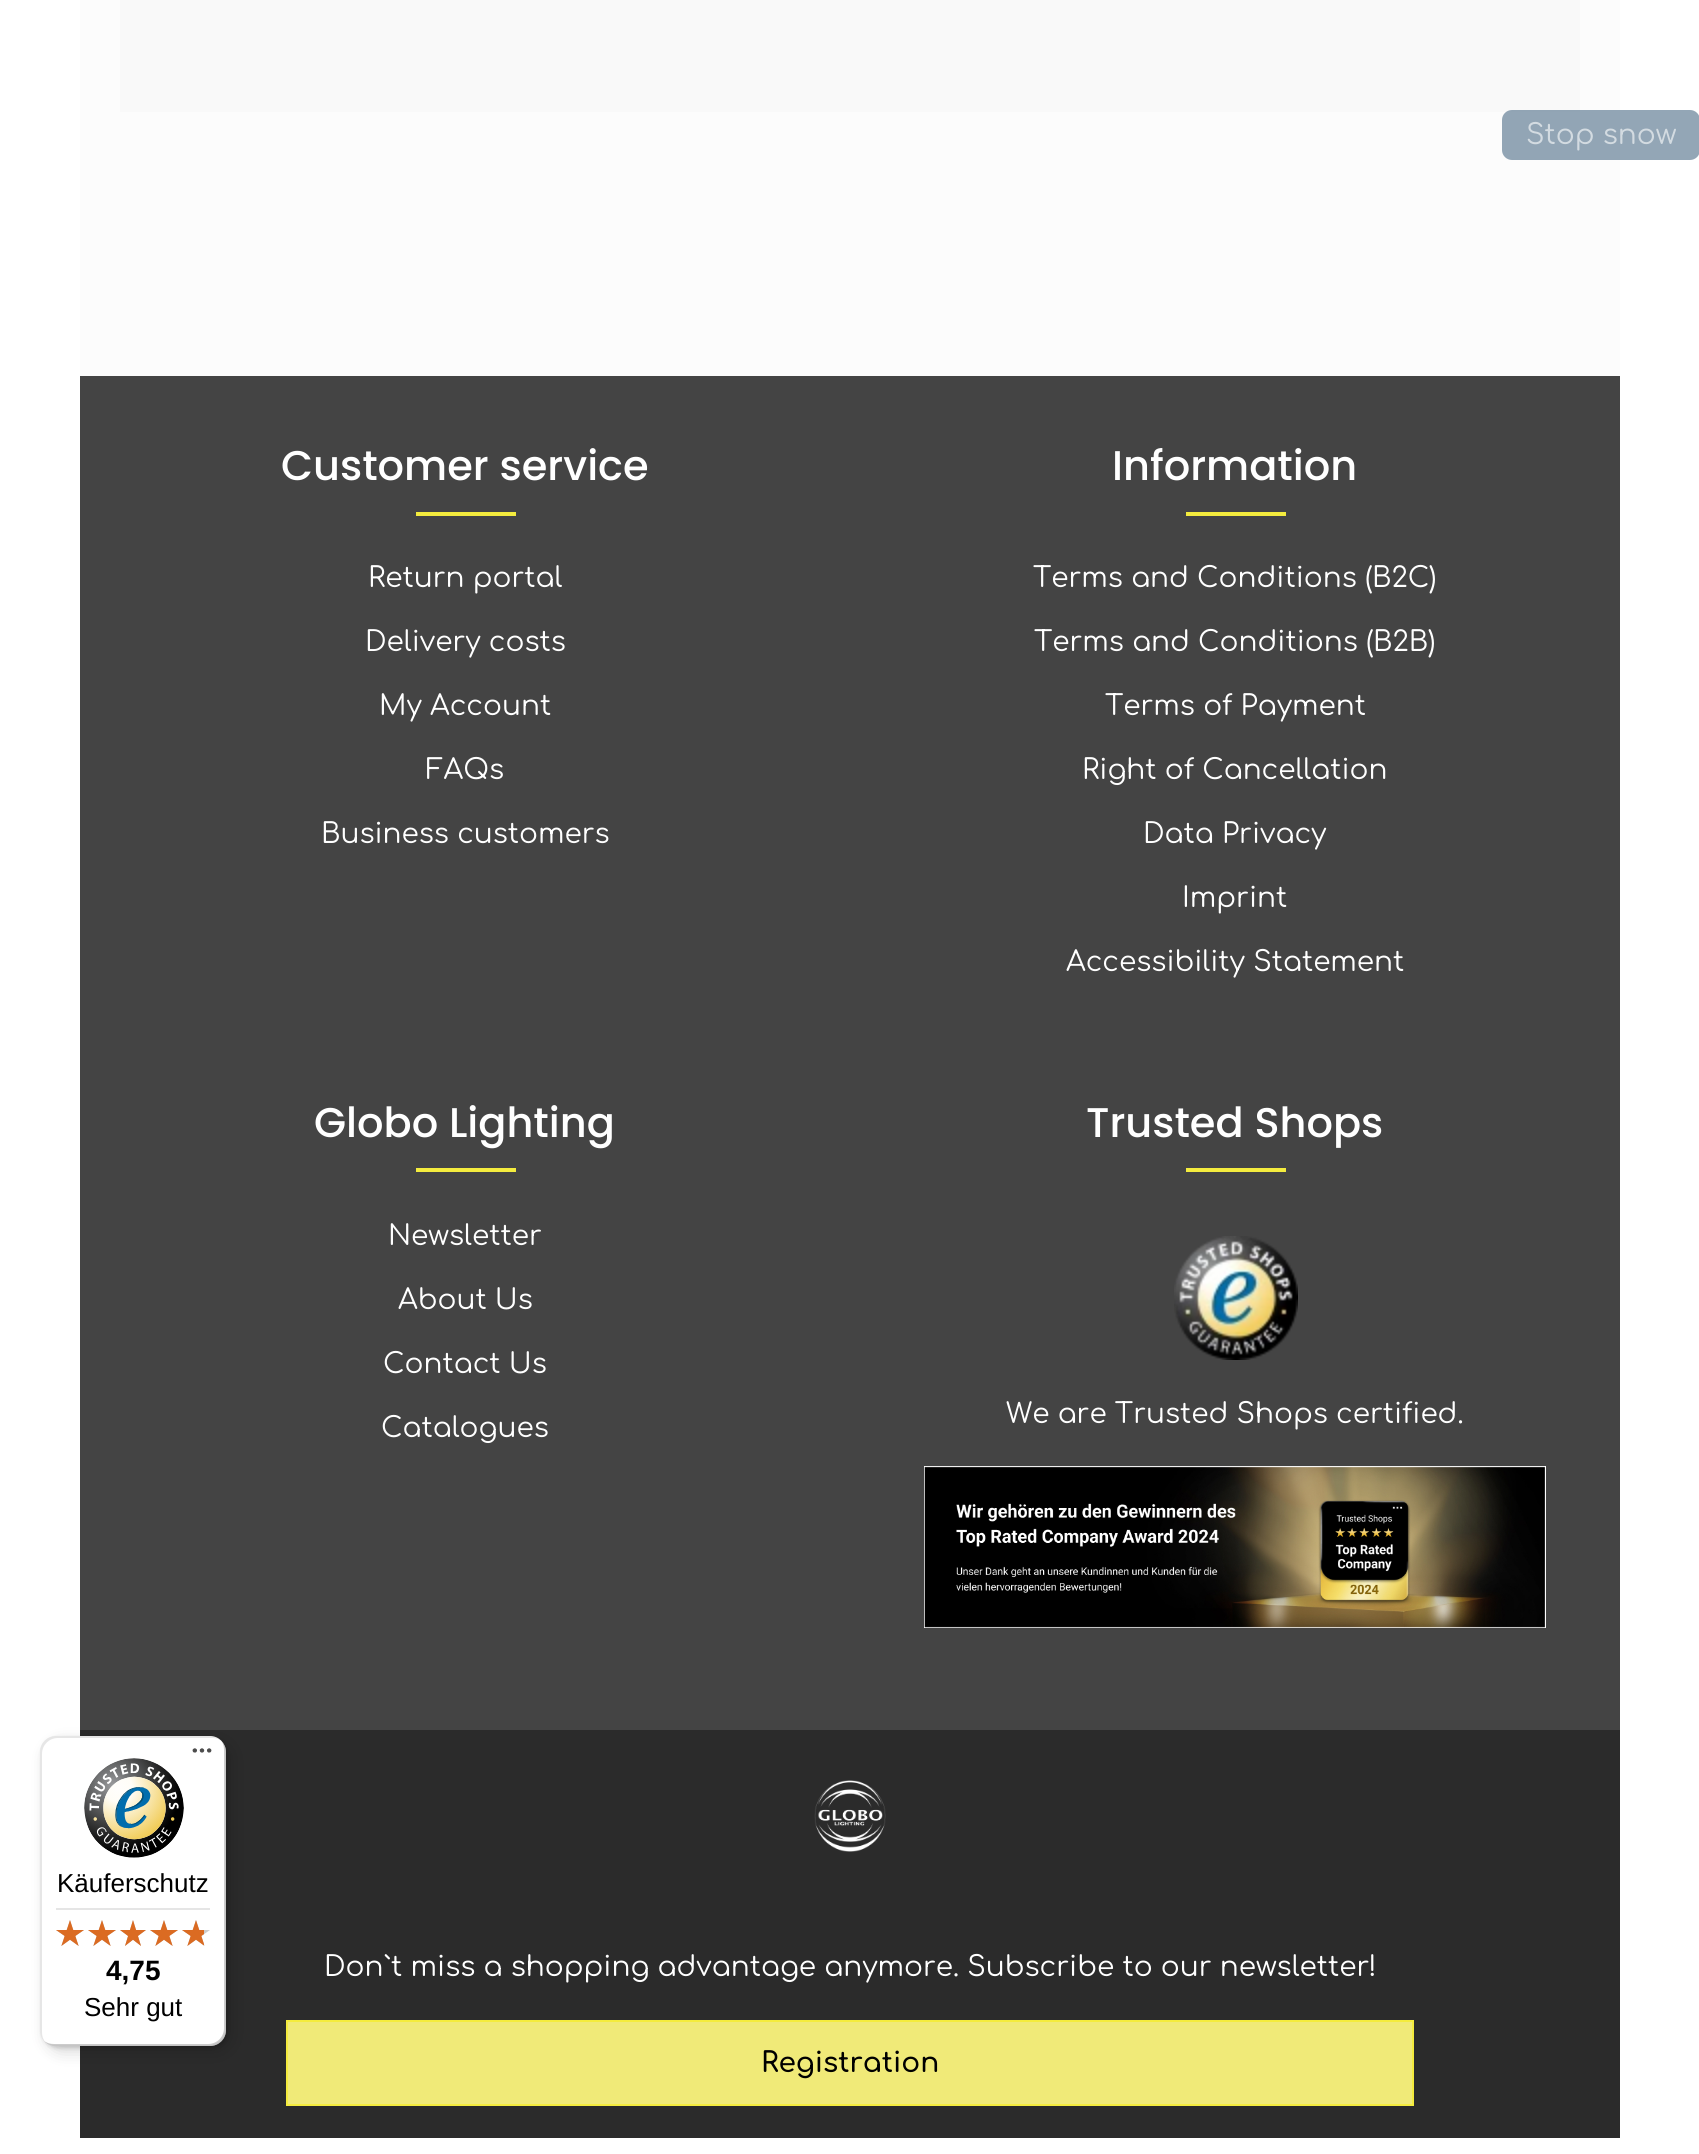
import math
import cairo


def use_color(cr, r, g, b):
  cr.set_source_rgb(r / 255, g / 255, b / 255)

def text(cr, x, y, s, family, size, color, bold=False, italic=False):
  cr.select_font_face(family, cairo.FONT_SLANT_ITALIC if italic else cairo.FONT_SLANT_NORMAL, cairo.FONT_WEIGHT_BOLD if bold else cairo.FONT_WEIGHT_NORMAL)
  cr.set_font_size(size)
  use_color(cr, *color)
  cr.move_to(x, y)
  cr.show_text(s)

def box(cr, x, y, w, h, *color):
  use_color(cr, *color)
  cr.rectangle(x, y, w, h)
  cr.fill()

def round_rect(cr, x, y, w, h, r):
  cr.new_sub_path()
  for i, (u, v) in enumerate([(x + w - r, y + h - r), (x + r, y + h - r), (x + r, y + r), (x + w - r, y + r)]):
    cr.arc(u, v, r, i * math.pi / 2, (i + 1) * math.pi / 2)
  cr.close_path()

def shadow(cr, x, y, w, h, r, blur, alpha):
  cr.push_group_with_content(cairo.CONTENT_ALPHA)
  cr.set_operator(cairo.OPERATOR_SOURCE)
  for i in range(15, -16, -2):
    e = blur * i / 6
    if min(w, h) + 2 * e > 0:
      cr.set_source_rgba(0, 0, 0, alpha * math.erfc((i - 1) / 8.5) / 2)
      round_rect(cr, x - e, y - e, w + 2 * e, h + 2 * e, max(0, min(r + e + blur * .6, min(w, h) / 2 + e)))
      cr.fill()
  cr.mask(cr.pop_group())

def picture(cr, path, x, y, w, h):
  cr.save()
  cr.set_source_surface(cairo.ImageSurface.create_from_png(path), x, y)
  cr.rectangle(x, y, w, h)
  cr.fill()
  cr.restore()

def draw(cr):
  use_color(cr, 255, 255, 255)
  cr.paint()
  box(cr, 80, 376, 1540, 1354, 68, 68, 68)
  box(cr, 80, 1730, 1540, 408, 43, 43, 43)
  use_color(cr, 0, 0, 0)
  shadow(cr, 46, 1742, 186, 310, 16, 8, 0.15)
  shadow(cr, 42, 1738, 186, 310, 16, 2, 0.15)
  use_color(cr, 255, 255, 255)
  round_rect(cr, 40, 1736, 186, 310, 16)
  cr.fill()
  cr.set_source_rgba(0, 0, 0, 0.1)
  cr.new_path()
  cr.move_to(58, 1738)
  cr.line_to(212, 1738)
  cr.curve_to(216, 1738, 219, 1739, 222, 1741)
  cr.curve_to(219, 1738, 215, 1736, 210, 1736)
  cr.line_to(56, 1736)
  cr.curve_to(47, 1736, 40, 1743, 40, 1752)
  cr.line_to(40, 2030)
  cr.curve_to(40, 2035, 42, 2039, 45, 2042)
  cr.curve_to(43, 2039, 42, 2036, 42, 2032)
  cr.line_to(42, 1754)
  cr.curve_to(42, 1745, 49, 1738, 58, 1738)
  cr.close_path()
  cr.fill()
  cr.set_source_rgba(0, 0, 0, 0.2)
  cr.new_path()
  cr.move_to(44, 2041)
  cr.curve_to(47, 2044, 51, 2046, 56, 2046)
  cr.line_to(210, 2046)
  cr.curve_to(219, 2046, 226, 2039, 226, 2030)
  cr.line_to(226, 1752)
  cr.curve_to(226, 1747, 224, 1743, 221, 1740)
  cr.curve_to(223, 1743, 224, 1746, 224, 1750)
  cr.line_to(224, 2028)
  cr.curve_to(224, 2037, 217, 2044, 208, 2044)
  cr.line_to(54, 2044)
  cr.curve_to(50, 2044, 47, 2043, 44, 2041)
  cr.close_path()
  cr.fill()
  cr.set_source_rgba(0.196, 0.196, 0.196, 0.2)
  cr.new_path()
  cr.move_to(45, 2041)
  cr.curve_to(48, 2044, 52, 2046, 56, 2046)
  cr.line_to(210, 2046)
  cr.curve_to(219, 2046, 226, 2039, 226, 2030)
  cr.line_to(226, 1752)
  cr.curve_to(226, 1748, 224, 1744, 221, 1741)
  cr.curve_to(224, 1744, 225, 1747, 225, 1751)
  cr.line_to(225, 2029)
  cr.curve_to(225, 2038, 218, 2045, 209, 2045)
  cr.line_to(55, 2045)
  cr.curve_to(51, 2045, 48, 2044, 45, 2041)
  cr.close_path()
  cr.fill()
  cr.set_source_rgba(1, 1, 1, 0.3)
  cr.new_path()
  cr.move_to(45, 2041)
  cr.curve_to(48, 2044, 52, 2046, 56, 2046)
  cr.line_to(210, 2046)
  cr.curve_to(219, 2046, 226, 2039, 226, 2030)
  cr.line_to(226, 1752)
  cr.curve_to(226, 1748, 224, 1744, 221, 1741)
  cr.curve_to(224, 1744, 225, 1747, 225, 1751)
  cr.line_to(225, 2029)
  cr.curve_to(225, 2038, 218, 2045, 209, 2045)
  cr.line_to(55, 2045)
  cr.curve_to(51, 2045, 48, 2044, 45, 2041)
  cr.close_path()
  cr.fill()
  picture(cr, "img_01.png", 192, 1748, 20, 5)
  picture(cr, "img_02.png", 84, 1758, 100, 100)
  box(cr, 56, 1908, 154, 2, 229, 229, 229)
  picture(cr, "img_03.png", 56, 1920, 28, 26)
  picture(cr, "img_03.png", 88, 1920, 28, 26)
  picture(cr, "img_04.png", 120, 1920, 26, 26)
  picture(cr, "img_03.png", 150, 1920, 28, 26)
  picture(cr, "img_03.png", 182, 1920, 28, 26)
  picture(cr, "img_05.png", 56, 1920, 28, 26)
  picture(cr, "img_05.png", 88, 1920, 28, 26)
  picture(cr, "img_06.png", 120, 1920, 26, 26)
  picture(cr, "img_05.png", 150, 1920, 28, 26)
  picture(cr, "img_07.png", 182, 1920, 22, 26)
  gradient = cairo.LinearGradient(850, -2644, 850, 376)
  gradient.add_color_stop_rgba(0, 1, 1, 1, 1)
  gradient.add_color_stop_rgba(1, 0.988, 0.988, 0.988, 1)
  cr.set_source(gradient)
  cr.rectangle(80, 0, 1540, 376)
  cr.fill()
  box(cr, 120, 0, 1460, 112, 249, 249, 249)
  cr.set_source_rgba(0.294, 0.42, 0.522, 0.6)
  round_rect(cr, 1502, 110, 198, 50, 10)
  cr.fill()
  box(cr, 416, 512, 100, 4, 244, 236, 62)
  box(cr, 1186, 512, 100, 4, 244, 236, 62)
  box(cr, 416, 1168, 100, 4, 244, 236, 62)
  box(cr, 1186, 1168, 100, 4, 244, 236, 62)
  picture(cr, "img_08.png", 1174, 1236, 124, 124)
  picture(cr, "img_09.png", 924, 1466, 622, 162)
  picture(cr, "img_10.png", 814, 1780, 72, 72)
  use_color(cr, 240, 234, 120)
  cr.rectangle(287, 2021, 1126, 84)
  cr.fill_preserve()
  use_color(cr, 244, 236, 62)
  cr.stroke()
  text(cr, 57, 1892, "Käuferschutz", "Liberation Sans", 26, (0, 0, 0))
  text(cr, 106, 1980, "4,75", "Liberation Sans", 28, (0, 0, 0), bold=True)
  text(cr, 84, 2016, "Sehr gut", "Liberation Sans", 26, (0, 0, 0))
  text(cr, 1526, 144, "Stop snow", "Comfortaa", 28, (211, 219, 225))
  text(cr, 281, 480, "Customer service", "Poppins Medium", 41.5, (255, 255, 255))
  text(cr, 368, 587, "Return portal", "Comfortaa", 28, (255, 255, 255))
  text(cr, 365, 651, "Delivery costs", "Comfortaa", 28, (255, 255, 255))
  text(cr, 379, 715, "My Account", "Comfortaa", 28, (255, 255, 255))
  text(cr, 426, 779, "FAQs", "Comfortaa", 28, (255, 255, 255))
  text(cr, 321, 843, "Business customers", "Comfortaa", 28, (255, 255, 255))
  text(cr, 1112, 480, "Information", "Poppins Medium", 41.5, (255, 255, 255))
  text(cr, 1033, 587, "Terms and Conditions (B2C)", "Comfortaa", 28, (255, 255, 255))
  text(cr, 1034, 651, "Terms and Conditions (B2B)", "Comfortaa", 28, (255, 255, 255))
  text(cr, 1105, 715, "Terms of Payment", "Comfortaa", 28, (255, 255, 255))
  text(cr, 1082, 779, "Right of Cancellation", "Comfortaa", 28, (255, 255, 255))
  text(cr, 1143, 843, "Data Privacy", "Comfortaa", 28, (255, 255, 255))
  text(cr, 1182, 907, "Imprint", "Comfortaa", 28, (255, 255, 255))
  text(cr, 1066, 971, "Accessibility Statement", "Comfortaa", 28, (255, 255, 255))
  text(cr, 314, 1137, "Globo Lighting", "Poppins Medium", 41.5, (255, 255, 255))
  text(cr, 388, 1245, "Newsletter", "Comfortaa", 28, (255, 255, 255))
  text(cr, 398, 1309, "About Us", "Comfortaa", 28, (255, 255, 255))
  text(cr, 383, 1373, "Contact Us", "Comfortaa", 28, (255, 255, 255))
  text(cr, 381, 1437, "Catalogues", "Comfortaa", 28, (255, 255, 255))
  text(cr, 1086, 1137, "Trusted Shops", "Poppins Medium", 41.5, (255, 255, 255))
  text(cr, 1006, 1423, "We are Trusted Shops certified.", "Comfortaa", 28, (255, 255, 255))
  text(cr, 324, 1976, "Don`t miss a shopping advantage anymore. Subscribe to our newsletter!", "Comfortaa", 28, (255, 255, 255))
  text(cr, 761, 2072, "Registration", "Comfortaa SemiBold", 28, (0, 0, 0))


surface = cairo.ImageSurface(cairo.FORMAT_RGB24, 1699, 2154)
cr = cairo.Context(surface)
options = cairo.FontOptions()
options.set_hint_metrics(cairo.HINT_METRICS_OFF)
options.set_hint_style(cairo.HINT_STYLE_NONE)
cr.set_font_options(options)
cr.set_miter_limit(4)
draw(cr)
surface.write_to_png("out.png")
